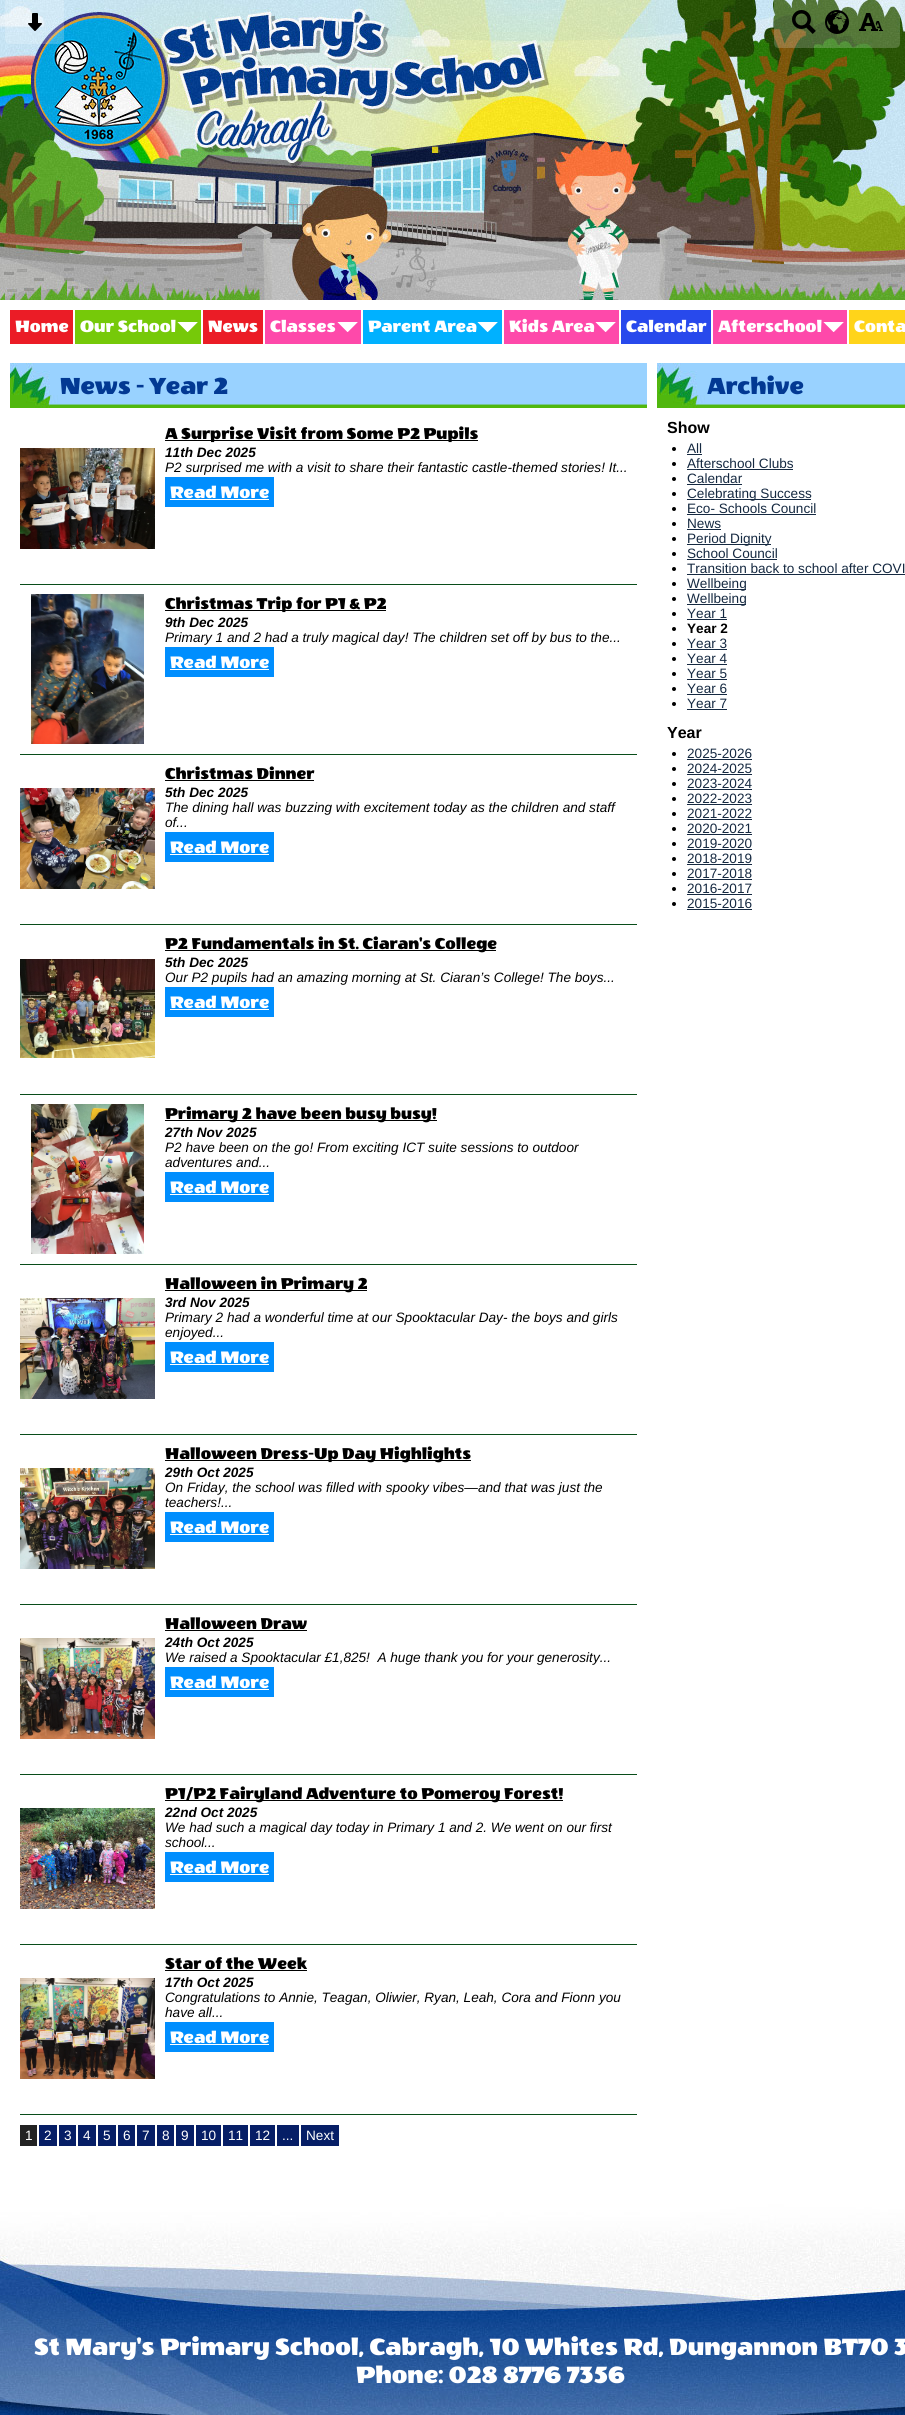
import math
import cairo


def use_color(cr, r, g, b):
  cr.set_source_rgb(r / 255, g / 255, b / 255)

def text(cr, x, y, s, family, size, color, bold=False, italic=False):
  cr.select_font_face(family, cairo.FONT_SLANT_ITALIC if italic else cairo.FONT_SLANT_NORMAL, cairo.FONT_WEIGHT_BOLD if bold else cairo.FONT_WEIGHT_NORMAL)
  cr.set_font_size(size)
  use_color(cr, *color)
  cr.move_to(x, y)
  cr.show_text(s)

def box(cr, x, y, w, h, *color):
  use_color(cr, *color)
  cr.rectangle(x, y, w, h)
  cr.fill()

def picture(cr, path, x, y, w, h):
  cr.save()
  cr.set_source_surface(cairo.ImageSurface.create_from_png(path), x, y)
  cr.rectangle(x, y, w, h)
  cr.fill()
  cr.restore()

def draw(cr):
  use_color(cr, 255, 255, 255)
  cr.paint()
  picture(cr, "img_05.png", 0, 0, 905, 300)
  cr.set_source_rgba(1, 1, 1, 0.2)
  cr.new_path()
  cr.move_to(5, 0)
  cr.line_to(64, 0)
  cr.line_to(64, 39)
  cr.curve_to(64, 42, 62, 44, 59, 44)
  cr.line_to(10, 44)
  cr.curve_to(7, 44, 5, 42, 5, 39)
  cr.close_path()
  cr.fill()
  picture(cr, "img_01.png", 28, 13, 14, 18)
  cr.new_path()
  cr.move_to(774, 0)
  cr.line_to(900, 0)
  cr.line_to(900, 43)
  cr.curve_to(900, 46, 898, 48, 895, 48)
  cr.line_to(779, 48)
  cr.curve_to(776, 48, 774, 46, 774, 43)
  cr.close_path()
  cr.fill()
  picture(cr, "img_02.png", 792, 10, 24, 24)
  picture(cr, "img_03.png", 825, 10, 24, 24)
  picture(cr, "img_04.png", 859, 13, 24, 18)
  box(cr, 10, 310, 63, 34, 235, 28, 38)
  box(cr, 75, 310, 126, 34, 118, 201, 9)
  picture(cr, "img_06.png", 177, 322, 21, 10)
  box(cr, 203, 310, 60, 34, 235, 28, 38)
  box(cr, 265, 310, 96, 34, 254, 73, 170)
  picture(cr, "img_07.png", 337, 322, 21, 10)
  box(cr, 363, 310, 139, 34, 0, 177, 255)
  picture(cr, "img_08.png", 477, 322, 21, 10)
  box(cr, 504, 310, 115, 34, 254, 73, 170)
  picture(cr, "img_07.png", 595, 322, 21, 10)
  box(cr, 621, 310, 90, 34, 40, 73, 236)
  box(cr, 713, 310, 134, 34, 254, 73, 170)
  picture(cr, "img_07.png", 823, 322, 21, 10)
  box(cr, 849, 310, 56, 34, 255, 212, 26)
  picture(cr, "img_09.png", 10, 363, 637, 45)
  box(cr, 20, 584, 617, 1, 9, 77, 26)
  picture(cr, "img_10.png", 20, 448, 135, 101)
  box(cr, 165, 440, 313, 1, 0, 0, 0)
  box(cr, 165, 477, 109, 30, 0, 142, 254)
  box(cr, 170, 499, 99, 1, 255, 255, 255)
  box(cr, 20, 754, 617, 1, 9, 77, 26)
  picture(cr, "img_11.png", 31, 594, 113, 150)
  box(cr, 165, 610, 221, 1, 0, 0, 0)
  box(cr, 165, 647, 109, 30, 0, 142, 254)
  box(cr, 170, 669, 99, 1, 255, 255, 255)
  box(cr, 20, 924, 617, 1, 9, 77, 26)
  picture(cr, "img_12.png", 20, 788, 135, 101)
  box(cr, 165, 780, 149, 1, 0, 0, 0)
  box(cr, 165, 832, 109, 30, 0, 142, 254)
  box(cr, 170, 854, 99, 1, 255, 255, 255)
  box(cr, 20, 1094, 617, 1, 9, 77, 26)
  picture(cr, "img_13.png", 20, 959, 135, 99)
  box(cr, 165, 950, 331, 1, 0, 0, 0)
  box(cr, 165, 987, 109, 30, 0, 142, 254)
  box(cr, 170, 1009, 99, 1, 255, 255, 255)
  box(cr, 20, 1264, 617, 1, 9, 77, 26)
  picture(cr, "img_14.png", 31, 1104, 113, 150)
  box(cr, 165, 1120, 272, 1, 0, 0, 0)
  box(cr, 165, 1172, 109, 30, 0, 142, 254)
  box(cr, 170, 1194, 99, 1, 255, 255, 255)
  box(cr, 20, 1434, 617, 1, 9, 77, 26)
  picture(cr, "img_15.png", 20, 1298, 135, 101)
  box(cr, 165, 1290, 202, 1, 0, 0, 0)
  box(cr, 165, 1342, 109, 30, 0, 142, 254)
  box(cr, 170, 1364, 99, 1, 255, 255, 255)
  box(cr, 20, 1604, 617, 1, 9, 77, 26)
  picture(cr, "img_16.png", 20, 1468, 135, 101)
  box(cr, 165, 1460, 306, 1, 0, 0, 0)
  box(cr, 165, 1512, 109, 30, 0, 142, 254)
  box(cr, 170, 1534, 99, 1, 255, 255, 255)
  box(cr, 20, 1774, 617, 1, 9, 77, 26)
  picture(cr, "img_17.png", 20, 1638, 135, 101)
  box(cr, 165, 1630, 142, 1, 0, 0, 0)
  box(cr, 165, 1667, 109, 30, 0, 142, 254)
  box(cr, 170, 1689, 99, 1, 255, 255, 255)
  box(cr, 20, 1944, 617, 1, 9, 77, 26)
  picture(cr, "img_18.png", 20, 1808, 135, 101)
  box(cr, 165, 1800, 398, 1, 0, 0, 0)
  box(cr, 165, 1852, 109, 30, 0, 142, 254)
  box(cr, 170, 1874, 99, 1, 255, 255, 255)
  box(cr, 20, 2114, 617, 1, 9, 77, 26)
  picture(cr, "img_19.png", 20, 1978, 135, 101)
  box(cr, 165, 1970, 142, 1, 0, 0, 0)
  box(cr, 165, 2022, 109, 30, 0, 142, 254)
  box(cr, 170, 2044, 99, 1, 255, 255, 255)
  box(cr, 20, 2125, 17, 21, 34, 34, 34)
  box(cr, 39, 2125, 18, 21, 6, 30, 102)
  box(cr, 59, 2125, 17, 21, 6, 30, 102)
  box(cr, 78, 2125, 18, 21, 6, 30, 102)
  box(cr, 98, 2125, 18, 21, 6, 30, 102)
  box(cr, 118, 2125, 17, 21, 6, 30, 102)
  box(cr, 137, 2125, 18, 21, 6, 30, 102)
  box(cr, 157, 2125, 17, 21, 6, 30, 102)
  box(cr, 176, 2125, 18, 21, 6, 30, 102)
  box(cr, 196, 2125, 25, 21, 6, 30, 102)
  box(cr, 223, 2125, 25, 21, 6, 30, 102)
  box(cr, 250, 2125, 25, 21, 6, 30, 102)
  box(cr, 277, 2125, 22, 21, 6, 30, 102)
  box(cr, 301, 2125, 38, 21, 6, 30, 102)
  picture(cr, "img_20.png", 657, 363, 248, 45)
  use_color(cr, 0, 0, 0)
  cr.arc(674, 449, 2, 0, 2 * math.pi)
  cr.fill()
  box(cr, 687, 454, 15, 1, 21, 41, 65)
  use_color(cr, 0, 0, 0)
  cr.arc(674, 464, 2, 0, 2 * math.pi)
  cr.fill()
  box(cr, 687, 469, 106, 1, 21, 41, 65)
  use_color(cr, 0, 0, 0)
  cr.arc(674, 479, 2, 0, 2 * math.pi)
  cr.fill()
  box(cr, 687, 484, 55, 1, 21, 41, 65)
  use_color(cr, 0, 0, 0)
  cr.arc(674, 494, 2, 0, 2 * math.pi)
  cr.fill()
  box(cr, 687, 499, 124, 1, 21, 41, 65)
  use_color(cr, 0, 0, 0)
  cr.arc(674, 509, 2, 0, 2 * math.pi)
  cr.fill()
  box(cr, 687, 514, 129, 1, 21, 41, 65)
  use_color(cr, 0, 0, 0)
  cr.arc(674, 524, 2, 0, 2 * math.pi)
  cr.fill()
  box(cr, 687, 529, 34, 1, 21, 41, 65)
  use_color(cr, 0, 0, 0)
  cr.arc(674, 539, 2, 0, 2 * math.pi)
  cr.fill()
  box(cr, 687, 544, 84, 1, 21, 41, 65)
  use_color(cr, 0, 0, 0)
  cr.arc(674, 554, 2, 0, 2 * math.pi)
  cr.fill()
  box(cr, 687, 559, 90, 1, 21, 41, 65)
  use_color(cr, 0, 0, 0)
  cr.arc(674, 569, 2, 0, 2 * math.pi)
  cr.fill()
  box(cr, 687, 574, 218, 1, 21, 41, 65)
  use_color(cr, 0, 0, 0)
  cr.arc(674, 584, 2, 0, 2 * math.pi)
  cr.fill()
  box(cr, 687, 589, 59, 1, 21, 41, 65)
  use_color(cr, 0, 0, 0)
  cr.arc(674, 599, 2, 0, 2 * math.pi)
  cr.fill()
  box(cr, 687, 604, 59, 1, 21, 41, 65)
  use_color(cr, 0, 0, 0)
  cr.arc(674, 614, 2, 0, 2 * math.pi)
  cr.fill()
  box(cr, 687, 619, 40, 1, 21, 41, 65)
  use_color(cr, 0, 0, 0)
  cr.arc(674, 629, 2, 0, 2 * math.pi)
  cr.fill()
  cr.arc(674, 644, 2, 0, 2 * math.pi)
  cr.fill()
  box(cr, 687, 649, 40, 1, 21, 41, 65)
  use_color(cr, 0, 0, 0)
  cr.arc(674, 659, 2, 0, 2 * math.pi)
  cr.fill()
  box(cr, 687, 664, 40, 1, 21, 41, 65)
  use_color(cr, 0, 0, 0)
  cr.arc(674, 674, 2, 0, 2 * math.pi)
  cr.fill()
  box(cr, 687, 679, 40, 1, 21, 41, 65)
  use_color(cr, 0, 0, 0)
  cr.arc(674, 689, 2, 0, 2 * math.pi)
  cr.fill()
  box(cr, 687, 694, 40, 1, 21, 41, 65)
  use_color(cr, 0, 0, 0)
  cr.arc(674, 704, 2, 0, 2 * math.pi)
  cr.fill()
  box(cr, 687, 709, 40, 1, 21, 41, 65)
  use_color(cr, 0, 0, 0)
  cr.arc(674, 754, 2, 0, 2 * math.pi)
  cr.fill()
  box(cr, 687, 759, 65, 1, 21, 41, 65)
  use_color(cr, 0, 0, 0)
  cr.arc(674, 769, 2, 0, 2 * math.pi)
  cr.fill()
  box(cr, 687, 774, 65, 1, 21, 41, 65)
  use_color(cr, 0, 0, 0)
  cr.arc(674, 784, 2, 0, 2 * math.pi)
  cr.fill()
  box(cr, 687, 789, 65, 1, 21, 41, 65)
  use_color(cr, 0, 0, 0)
  cr.arc(674, 799, 2, 0, 2 * math.pi)
  cr.fill()
  box(cr, 687, 804, 65, 1, 21, 41, 65)
  use_color(cr, 0, 0, 0)
  cr.arc(674, 814, 2, 0, 2 * math.pi)
  cr.fill()
  box(cr, 687, 819, 65, 1, 21, 41, 65)
  use_color(cr, 0, 0, 0)
  cr.arc(674, 829, 2, 0, 2 * math.pi)
  cr.fill()
  box(cr, 687, 834, 65, 1, 21, 41, 65)
  use_color(cr, 0, 0, 0)
  cr.arc(674, 844, 2, 0, 2 * math.pi)
  cr.fill()
  box(cr, 687, 849, 65, 1, 21, 41, 65)
  use_color(cr, 0, 0, 0)
  cr.arc(674, 859, 2, 0, 2 * math.pi)
  cr.fill()
  box(cr, 687, 864, 65, 1, 21, 41, 65)
  use_color(cr, 0, 0, 0)
  cr.arc(674, 874, 2, 0, 2 * math.pi)
  cr.fill()
  box(cr, 687, 879, 65, 1, 21, 41, 65)
  use_color(cr, 0, 0, 0)
  cr.arc(674, 889, 2, 0, 2 * math.pi)
  cr.fill()
  box(cr, 687, 894, 65, 1, 21, 41, 65)
  use_color(cr, 0, 0, 0)
  cr.arc(674, 904, 2, 0, 2 * math.pi)
  cr.fill()
  box(cr, 687, 909, 65, 1, 21, 41, 65)
  picture(cr, "img_21.png", 0, 2183, 905, 232)
  text(cr, 15, 332, "Home", "Wendy One", 18.75, (255, 255, 255))
  text(cr, 80, 332, "Our School", "Wendy One", 18.75, (255, 255, 255))
  text(cr, 208, 332, "News", "Wendy One", 18.75, (255, 255, 255))
  text(cr, 270, 332, "Classes", "Wendy One", 18.75, (255, 255, 255))
  text(cr, 368, 332, "Parent Area", "Wendy One", 18.75, (255, 255, 255))
  text(cr, 509, 332, "Kids Area", "Wendy One", 18.75, (255, 255, 255))
  text(cr, 626, 332, "Calendar", "Wendy One", 18.75, (255, 255, 255))
  text(cr, 718, 332, "Afterschool", "Wendy One", 18.75, (255, 255, 255))
  text(cr, 854, 332, "Conta", "Wendy One", 18.75, (255, 255, 255))
  text(cr, 60, 394, "News - Year 2", "Wendy One", 26.5, (2, 57, 147))
  text(cr, 165, 439, "A Surprise Visit from Some P2 Pupils", "Wendy One", 17.95, (0, 0, 0))
  text(cr, 165, 457, "11th Dec 2025", "Liberation Sans", 13.6, (0, 0, 0), bold=True, italic=True)
  text(cr, 165, 472, "P2 surprised me with a visit to share their fantastic castle-themed stories! It...", "Liberation Sans", 13.6, (0, 0, 0), italic=True)
  text(cr, 170, 498, "Read More", "Wendy One", 19, (255, 255, 255))
  text(cr, 165, 609, "Christmas Trip for P1 & P2", "Wendy One", 17.95, (0, 0, 0))
  text(cr, 165, 627, "9th Dec 2025", "Liberation Sans", 13.6, (0, 0, 0), bold=True, italic=True)
  text(cr, 165, 642, "Primary 1 and 2 had a truly magical day! The children set off by bus to the...", "Liberation Sans", 13.6, (0, 0, 0), italic=True)
  text(cr, 170, 668, "Read More", "Wendy One", 19, (255, 255, 255))
  text(cr, 165, 779, "Christmas Dinner", "Wendy One", 17.95, (0, 0, 0))
  text(cr, 165, 797, "5th Dec 2025", "Liberation Sans", 13.6, (0, 0, 0), bold=True, italic=True)
  text(cr, 165, 812, "The dining hall was buzzing with excitement today as the children and staff", "Liberation Sans", 13.6, (0, 0, 0), italic=True)
  text(cr, 165, 827, "of...", "Liberation Sans", 13.6, (0, 0, 0), italic=True)
  text(cr, 170, 853, "Read More", "Wendy One", 19, (255, 255, 255))
  text(cr, 165, 949, "P2 Fundamentals in St. Ciaran's College", "Wendy One", 17.95, (0, 0, 0))
  text(cr, 165, 967, "5th Dec 2025", "Liberation Sans", 13.6, (0, 0, 0), bold=True, italic=True)
  text(cr, 165, 982, "Our P2 pupils had an amazing morning at St. Ciaran’s College! The boys...", "Liberation Sans", 13.6, (0, 0, 0), italic=True)
  text(cr, 170, 1008, "Read More", "Wendy One", 19, (255, 255, 255))
  text(cr, 165, 1119, "Primary 2 have been busy busy!", "Wendy One", 17.95, (0, 0, 0))
  text(cr, 165, 1137, "27th Nov 2025", "Liberation Sans", 13.6, (0, 0, 0), bold=True, italic=True)
  text(cr, 165, 1152, "P2 have been on the go! From exciting ICT suite sessions to outdoor", "Liberation Sans", 13.6, (0, 0, 0), italic=True)
  text(cr, 165, 1167, "adventures and...", "Liberation Sans", 13.6, (0, 0, 0), italic=True)
  text(cr, 170, 1193, "Read More", "Wendy One", 19, (255, 255, 255))
  text(cr, 165, 1289, "Halloween in Primary 2", "Wendy One", 17.95, (0, 0, 0))
  text(cr, 165, 1307, "3rd Nov 2025", "Liberation Sans", 13.6, (0, 0, 0), bold=True, italic=True)
  text(cr, 165, 1322, "Primary 2 had a wonderful time at our Spooktacular Day- the boys and girls", "Liberation Sans", 13.6, (0, 0, 0), italic=True)
  text(cr, 165, 1337, "enjoyed...", "Liberation Sans", 13.6, (0, 0, 0), italic=True)
  text(cr, 170, 1363, "Read More", "Wendy One", 19, (255, 255, 255))
  text(cr, 165, 1459, "Halloween Dress-Up Day Highlights", "Wendy One", 17.95, (0, 0, 0))
  text(cr, 165, 1477, "29th Oct 2025", "Liberation Sans", 13.6, (0, 0, 0), bold=True, italic=True)
  text(cr, 165, 1492, "On Friday, the school was filled with spooky vibes—and that was just the", "Liberation Sans", 13.6, (0, 0, 0), italic=True)
  text(cr, 165, 1507, "teachers!...", "Liberation Sans", 13.6, (0, 0, 0), italic=True)
  text(cr, 170, 1533, "Read More", "Wendy One", 19, (255, 255, 255))
  text(cr, 165, 1629, "Halloween Draw", "Wendy One", 17.95, (0, 0, 0))
  text(cr, 165, 1647, "24th Oct 2025", "Liberation Sans", 13.6, (0, 0, 0), bold=True, italic=True)
  text(cr, 165, 1662, "We raised a Spooktacular £1,825!  A huge thank you for your generosity...", "Liberation Sans", 13.6, (0, 0, 0), italic=True)
  text(cr, 170, 1688, "Read More", "Wendy One", 19, (255, 255, 255))
  text(cr, 165, 1799, "P1/P2 Fairyland Adventure to Pomeroy Forest!", "Wendy One", 17.95, (0, 0, 0))
  text(cr, 165, 1817, "22nd Oct 2025", "Liberation Sans", 13.6, (0, 0, 0), bold=True, italic=True)
  text(cr, 165, 1832, "We had such a magical day today in Primary 1 and 2. We went on our first", "Liberation Sans", 13.6, (0, 0, 0), italic=True)
  text(cr, 165, 1847, "school...", "Liberation Sans", 13.6, (0, 0, 0), italic=True)
  text(cr, 170, 1873, "Read More", "Wendy One", 19, (255, 255, 255))
  text(cr, 165, 1969, "Star of the Week", "Wendy One", 17.95, (0, 0, 0))
  text(cr, 165, 1987, "17th Oct 2025", "Liberation Sans", 13.6, (0, 0, 0), bold=True, italic=True)
  text(cr, 165, 2002, "Congratulations to Annie, Teagan, Oliwier, Ryan, Leah, Cora and Fionn you", "Liberation Sans", 13.6, (0, 0, 0), italic=True)
  text(cr, 165, 2017, "have all...", "Liberation Sans", 13.6, (0, 0, 0), italic=True)
  text(cr, 170, 2043, "Read More", "Wendy One", 19, (255, 255, 255))
  text(cr, 25, 2140, "1", "Liberation Sans", 13.6, (255, 255, 255))
  text(cr, 44, 2140, "2", "Liberation Sans", 13.6, (255, 255, 255))
  text(cr, 64, 2140, "3", "Liberation Sans", 13.6, (255, 255, 255))
  text(cr, 83, 2140, "4", "Liberation Sans", 13.6, (255, 255, 255))
  text(cr, 103, 2140, "5", "Liberation Sans", 13.6, (255, 255, 255))
  text(cr, 123, 2140, "6", "Liberation Sans", 13.6, (255, 255, 255))
  text(cr, 142, 2140, "7", "Liberation Sans", 13.6, (255, 255, 255))
  text(cr, 162, 2140, "8", "Liberation Sans", 13.6, (255, 255, 255))
  text(cr, 181, 2140, "9", "Liberation Sans", 13.6, (255, 255, 255))
  text(cr, 201, 2140, "10", "Liberation Sans", 13.6, (255, 255, 255))
  text(cr, 228, 2140, "11", "Liberation Sans", 13.6, (255, 255, 255))
  text(cr, 255, 2140, "12", "Liberation Sans", 13.6, (255, 255, 255))
  text(cr, 282, 2140, "...", "Liberation Sans", 13.6, (255, 255, 255))
  text(cr, 306, 2140, "Next", "Liberation Sans", 13.6, (255, 255, 255))
  text(cr, 707, 394, "Archive", "Wendy One", 26.5, (2, 57, 147))
  text(cr, 667, 433, "Show", "Liberation Sans", 16, (0, 0, 0), bold=True)
  text(cr, 687, 453, "All", "Liberation Sans", 13.6, (21, 41, 65))
  text(cr, 687, 468, "Afterschool Clubs", "Liberation Sans", 13.6, (21, 41, 65))
  text(cr, 687, 483, "Calendar", "Liberation Sans", 13.6, (21, 41, 65))
  text(cr, 687, 498, "Celebrating Success", "Liberation Sans", 13.6, (21, 41, 65))
  text(cr, 687, 513, "Eco- Schools Council", "Liberation Sans", 13.6, (21, 41, 65))
  text(cr, 687, 528, "News", "Liberation Sans", 13.6, (21, 41, 65))
  text(cr, 687, 543, "Period Dignity", "Liberation Sans", 13.6, (21, 41, 65))
  text(cr, 687, 558, "School Council", "Liberation Sans", 13.6, (21, 41, 65))
  text(cr, 687, 573, "Transition back to school after COVI", "Liberation Sans", 13.6, (21, 41, 65))
  text(cr, 687, 588, "Wellbeing", "Liberation Sans", 13.6, (21, 41, 65))
  text(cr, 687, 603, "Wellbeing", "Liberation Sans", 13.6, (21, 41, 65))
  text(cr, 687, 618, "Year 1", "Liberation Sans", 13.6, (21, 41, 65))
  text(cr, 687, 633, "Year 2", "Liberation Sans", 13.6, (0, 0, 0), bold=True)
  text(cr, 687, 648, "Year 3", "Liberation Sans", 13.6, (21, 41, 65))
  text(cr, 687, 663, "Year 4", "Liberation Sans", 13.6, (21, 41, 65))
  text(cr, 687, 678, "Year 5", "Liberation Sans", 13.6, (21, 41, 65))
  text(cr, 687, 693, "Year 6", "Liberation Sans", 13.6, (21, 41, 65))
  text(cr, 687, 708, "Year 7", "Liberation Sans", 13.6, (21, 41, 65))
  text(cr, 667, 738, "Year", "Liberation Sans", 16, (0, 0, 0), bold=True)
  text(cr, 687, 758, "2025-2026", "Liberation Sans", 13.6, (21, 41, 65))
  text(cr, 687, 773, "2024-2025", "Liberation Sans", 13.6, (21, 41, 65))
  text(cr, 687, 788, "2023-2024", "Liberation Sans", 13.6, (21, 41, 65))
  text(cr, 687, 803, "2022-2023", "Liberation Sans", 13.6, (21, 41, 65))
  text(cr, 687, 818, "2021-2022", "Liberation Sans", 13.6, (21, 41, 65))
  text(cr, 687, 833, "2020-2021", "Liberation Sans", 13.6, (21, 41, 65))
  text(cr, 687, 848, "2019-2020", "Liberation Sans", 13.6, (21, 41, 65))
  text(cr, 687, 863, "2018-2019", "Liberation Sans", 13.6, (21, 41, 65))
  text(cr, 687, 878, "2017-2018", "Liberation Sans", 13.6, (21, 41, 65))
  text(cr, 687, 893, "2016-2017", "Liberation Sans", 13.6, (21, 41, 65))
  text(cr, 687, 908, "2015-2016", "Liberation Sans", 13.6, (21, 41, 65))
  text(cr, 34, 2355, "St Mary's Primary School, Cabragh, 10 Whites Rd, Dungannon BT70 3", "Wendy One", 26.9, (255, 255, 255))
  text(cr, 356, 2383, "Phone: 028 8776 7356", "Wendy One", 26.9, (255, 255, 255))


surface = cairo.ImageSurface(cairo.FORMAT_RGB24, 905, 2415)
cr = cairo.Context(surface)
options = cairo.FontOptions()
options.set_hint_metrics(cairo.HINT_METRICS_OFF)
options.set_hint_style(cairo.HINT_STYLE_NONE)
cr.set_font_options(options)
cr.set_miter_limit(4)
draw(cr)
surface.write_to_png("out.png")
